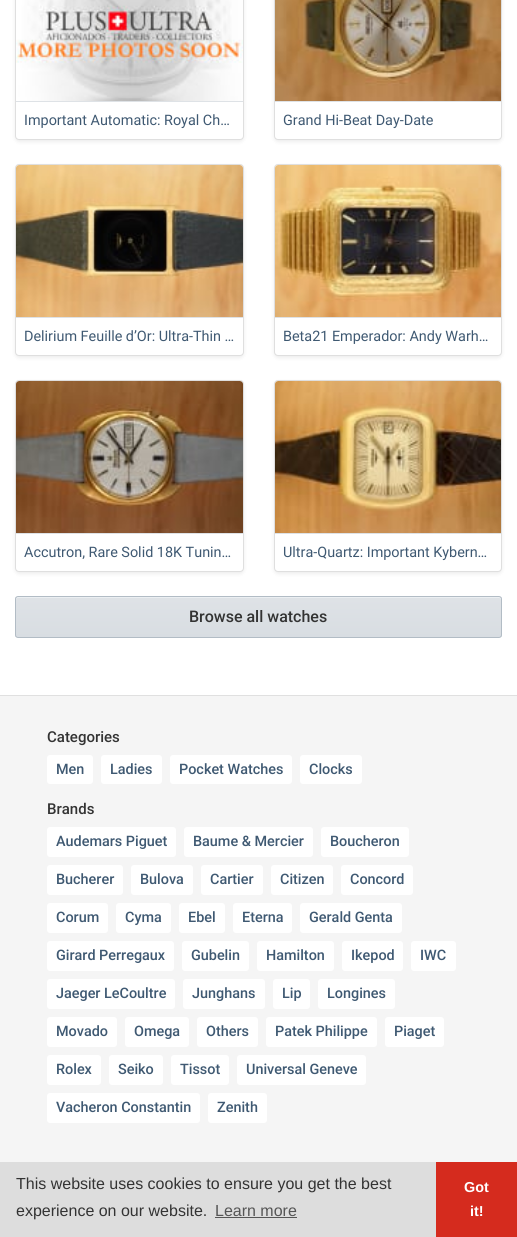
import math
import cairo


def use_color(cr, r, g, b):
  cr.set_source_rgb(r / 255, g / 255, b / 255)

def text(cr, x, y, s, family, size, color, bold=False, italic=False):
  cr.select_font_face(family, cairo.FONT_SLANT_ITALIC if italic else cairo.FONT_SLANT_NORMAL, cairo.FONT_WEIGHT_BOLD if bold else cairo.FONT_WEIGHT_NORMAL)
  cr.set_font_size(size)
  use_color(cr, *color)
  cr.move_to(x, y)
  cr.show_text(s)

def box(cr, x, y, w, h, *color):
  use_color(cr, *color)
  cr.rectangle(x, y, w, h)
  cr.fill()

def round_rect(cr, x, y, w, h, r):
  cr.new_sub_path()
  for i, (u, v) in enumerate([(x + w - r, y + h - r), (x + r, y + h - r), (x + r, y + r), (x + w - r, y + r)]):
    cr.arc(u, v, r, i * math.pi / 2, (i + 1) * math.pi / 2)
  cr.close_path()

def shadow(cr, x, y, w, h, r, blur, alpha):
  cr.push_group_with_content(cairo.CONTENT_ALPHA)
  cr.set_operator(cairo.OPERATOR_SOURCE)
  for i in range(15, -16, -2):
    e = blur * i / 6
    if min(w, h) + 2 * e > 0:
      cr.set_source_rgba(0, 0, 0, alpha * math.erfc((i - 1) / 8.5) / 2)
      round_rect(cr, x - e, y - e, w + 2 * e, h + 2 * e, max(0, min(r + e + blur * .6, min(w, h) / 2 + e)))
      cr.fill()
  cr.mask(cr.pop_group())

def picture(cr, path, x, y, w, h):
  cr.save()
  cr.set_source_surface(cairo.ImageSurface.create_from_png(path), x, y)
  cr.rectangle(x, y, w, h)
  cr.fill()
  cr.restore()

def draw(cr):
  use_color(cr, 255, 255, 255)
  cr.paint()
  use_color(cr, 0, 0, 0)
  shadow(cr, 15, -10, 229, 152, 4, 2, 0.07)
  use_color(cr, 255, 255, 255)
  round_rect(cr, 15.5, -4.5, 228, 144, 3.5)
  cr.fill_preserve()
  use_color(cr, 223, 223, 223)
  cr.set_line_width(1)
  cr.stroke()
  picture(cr, "img_01.png", 16, 0, 227, 101)
  box(cr, 16, 101, 227, 1, 222, 226, 230)
  use_color(cr, 0, 0, 0)
  shadow(cr, 274, -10, 228, 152, 4, 2, 0.07)
  use_color(cr, 255, 255, 255)
  round_rect(cr, 274.5, -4.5, 227, 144, 3.5)
  cr.fill_preserve()
  use_color(cr, 223, 223, 223)
  cr.stroke()
  picture(cr, "img_02.png", 275, 0, 226, 101)
  box(cr, 275, 101, 226, 1, 222, 226, 230)
  use_color(cr, 0, 0, 0)
  shadow(cr, 15, 166, 229, 192, 4, 2, 0.07)
  use_color(cr, 255, 255, 255)
  round_rect(cr, 15.5, 164.5, 228, 191, 3.5)
  cr.fill_preserve()
  use_color(cr, 223, 223, 223)
  cr.stroke()
  picture(cr, "img_03.png", 16, 165, 227, 152)
  box(cr, 16, 317, 227, 1, 222, 226, 230)
  use_color(cr, 0, 0, 0)
  shadow(cr, 274, 166, 228, 192, 4, 2, 0.07)
  use_color(cr, 255, 255, 255)
  round_rect(cr, 274.5, 164.5, 227, 191, 3.5)
  cr.fill_preserve()
  use_color(cr, 223, 223, 223)
  cr.stroke()
  picture(cr, "img_04.png", 275, 165, 226, 152)
  box(cr, 275, 317, 226, 1, 222, 226, 230)
  use_color(cr, 0, 0, 0)
  shadow(cr, 15, 382, 229, 192, 4, 2, 0.07)
  use_color(cr, 255, 255, 255)
  round_rect(cr, 15.5, 380.5, 228, 191, 3.5)
  cr.fill_preserve()
  use_color(cr, 223, 223, 223)
  cr.stroke()
  picture(cr, "img_05.png", 16, 381, 227, 152)
  box(cr, 16, 533, 227, 1, 222, 226, 230)
  use_color(cr, 0, 0, 0)
  shadow(cr, 274, 382, 228, 192, 4, 2, 0.07)
  use_color(cr, 255, 255, 255)
  round_rect(cr, 274.5, 380.5, 227, 191, 3.5)
  cr.fill_preserve()
  use_color(cr, 223, 223, 223)
  cr.stroke()
  picture(cr, "img_06.png", 275, 381, 226, 152)
  box(cr, 275, 533, 226, 1, 222, 226, 230)
  cr.save()
  round_rect(cr, 15, 596, 487, 42, 3)
  cr.clip()
  gradient = cairo.LinearGradient(259, 597, 259, 637)
  gradient.add_color_stop_rgba(0.05, 0.871, 0.886, 0.902, 1)
  gradient.add_color_stop_rgba(1, 0.847, 0.867, 0.886, 1)
  cr.set_source(gradient)
  cr.rectangle(15, 597, 487, 40)
  cr.fill()
  cr.restore()
  use_color(cr, 235, 239, 242)
  cr.new_path()
  cr.move_to(18, 598)
  cr.line_to(499, 598)
  cr.curve_to(500, 598, 501, 599, 501, 600)
  cr.line_to(501, 598)
  cr.line_to(499, 597)
  cr.line_to(17, 597)
  cr.curve_to(16, 598, 16, 599, 16, 600)
  cr.curve_to(16, 599, 17, 598, 18, 598)
  cr.close_path()
  cr.fill()
  round_rect(cr, 15.5, 596.5, 486, 41, 2.5)
  use_color(cr, 178, 188, 197)
  cr.stroke()
  box(cr, 0, 696, 517, 466, 245, 245, 245)
  box(cr, 0, 695, 517, 1, 224, 224, 224)
  use_color(cr, 255, 255, 255)
  round_rect(cr, 47, 755, 46, 29, 3)
  cr.fill()
  round_rect(cr, 101, 755, 61, 29, 3)
  cr.fill()
  round_rect(cr, 170, 755, 122, 29, 3)
  cr.fill()
  round_rect(cr, 300, 755, 62, 29, 3)
  cr.fill()
  round_rect(cr, 47, 827, 129, 30, 3)
  cr.fill()
  round_rect(cr, 184, 827, 129, 30, 3)
  cr.fill()
  round_rect(cr, 321, 827, 88, 30, 3)
  cr.fill()
  round_rect(cr, 47, 865, 76, 30, 3)
  cr.fill()
  round_rect(cr, 131, 865, 62, 30, 3)
  cr.fill()
  round_rect(cr, 201, 865, 62, 30, 3)
  cr.fill()
  round_rect(cr, 271, 865, 62, 30, 3)
  cr.fill()
  round_rect(cr, 341, 865, 72, 30, 3)
  cr.fill()
  round_rect(cr, 47, 903, 61, 30, 3)
  cr.fill()
  round_rect(cr, 116, 903, 55, 30, 3)
  cr.fill()
  round_rect(cr, 179, 903, 46, 30, 3)
  cr.fill()
  round_rect(cr, 233, 903, 59, 30, 3)
  cr.fill()
  round_rect(cr, 300, 903, 102, 30, 3)
  cr.fill()
  round_rect(cr, 47, 941, 127, 30, 3)
  cr.fill()
  round_rect(cr, 182, 941, 67, 30, 3)
  cr.fill()
  round_rect(cr, 257, 941, 77, 30, 3)
  cr.fill()
  round_rect(cr, 342, 941, 61, 30, 3)
  cr.fill()
  round_rect(cr, 411, 941, 45, 30, 3)
  cr.fill()
  round_rect(cr, 47, 979, 128, 30, 3)
  cr.fill()
  round_rect(cr, 183, 979, 82, 30, 3)
  cr.fill()
  round_rect(cr, 273, 979, 37, 30, 3)
  cr.fill()
  round_rect(cr, 318, 979, 77, 30, 3)
  cr.fill()
  round_rect(cr, 47, 1017, 70, 30, 3)
  cr.fill()
  round_rect(cr, 125, 1017, 64, 30, 3)
  cr.fill()
  round_rect(cr, 197, 1017, 61, 30, 3)
  cr.fill()
  round_rect(cr, 266, 1017, 111, 30, 3)
  cr.fill()
  round_rect(cr, 385, 1017, 59, 30, 3)
  cr.fill()
  round_rect(cr, 47, 1055, 54, 30, 3)
  cr.fill()
  round_rect(cr, 109, 1055, 54, 30, 3)
  cr.fill()
  round_rect(cr, 171, 1055, 58, 30, 3)
  cr.fill()
  round_rect(cr, 237, 1055, 129, 30, 3)
  cr.fill()
  round_rect(cr, 47, 1093, 153, 30, 3)
  cr.fill()
  round_rect(cr, 208, 1093, 59, 30, 3)
  cr.fill()
  box(cr, 0, 1162, 436, 75, 221, 221, 221)
  box(cr, 215, 1217, 82, 1, 85, 85, 85)
  box(cr, 436, 1162, 81, 75, 213, 43, 30)
  text(cr, 24, 125, "Important Automatic: Royal Ch…", "Roboto", 14.4, (63, 89, 114))
  text(cr, 283, 125, "Grand Hi-Beat Day-Date", "Roboto", 14.4, (63, 89, 114))
  text(cr, 24, 341, "Delirium Feuille d’Or: Ultra-Thin …", "Roboto", 14.4, (63, 89, 114))
  text(cr, 283, 341, "Beta21 Emperador: Andy Warh…", "Roboto", 14.4, (63, 89, 114))
  text(cr, 24, 557, "Accutron, Rare Solid 18K Tunin…", "Roboto", 14.4, (63, 89, 114))
  text(cr, 283, 557, "Ultra-Quartz: Important Kybern…", "Roboto", 14.4, (63, 89, 114))
  text(cr, 189, 622, "Browse all watches", "Roboto Medium", 16, (51, 51, 51))
  text(cr, 47, 742, "Categories", "Roboto Medium", 15, (51, 51, 51))
  text(cr, 56, 774, "Men", "Roboto Medium", 14.4, (63, 89, 114))
  text(cr, 110, 774, "Ladies", "Roboto Medium", 14.4, (63, 89, 114))
  text(cr, 179, 774, "Pocket Watches", "Roboto Medium", 14.4, (63, 89, 114))
  text(cr, 309, 774, "Clocks", "Roboto Medium", 14.4, (63, 89, 114))
  text(cr, 47, 814, "Brands", "Roboto Medium", 15, (51, 51, 51))
  text(cr, 56, 846, "Audemars Piguet", "Roboto Medium", 14.4, (63, 89, 114))
  text(cr, 193, 846, "Baume & Mercier", "Roboto Medium", 14.4, (63, 89, 114))
  text(cr, 330, 846, "Boucheron", "Roboto Medium", 14.4, (63, 89, 114))
  text(cr, 56, 884, "Bucherer", "Roboto Medium", 14.4, (63, 89, 114))
  text(cr, 140, 884, "Bulova", "Roboto Medium", 14.4, (63, 89, 114))
  text(cr, 210, 884, "Cartier", "Roboto Medium", 14.4, (63, 89, 114))
  text(cr, 280, 884, "Citizen", "Roboto Medium", 14.4, (63, 89, 114))
  text(cr, 350, 884, "Concord", "Roboto Medium", 14.4, (63, 89, 114))
  text(cr, 56, 922, "Corum", "Roboto Medium", 14.4, (63, 89, 114))
  text(cr, 125, 922, "Cyma", "Roboto Medium", 14.4, (63, 89, 114))
  text(cr, 188, 922, "Ebel", "Roboto Medium", 14.4, (63, 89, 114))
  text(cr, 242, 922, "Eterna", "Roboto Medium", 14.4, (63, 89, 114))
  text(cr, 309, 922, "Gerald Genta", "Roboto Medium", 14.4, (63, 89, 114))
  text(cr, 56, 960, "Girard Perregaux", "Roboto Medium", 14.4, (63, 89, 114))
  text(cr, 191, 960, "Gubelin", "Roboto Medium", 14.4, (63, 89, 114))
  text(cr, 266, 960, "Hamilton", "Roboto Medium", 14.4, (63, 89, 114))
  text(cr, 351, 960, "Ikepod", "Roboto Medium", 14.4, (63, 89, 114))
  text(cr, 420, 960, "IWC", "Roboto Medium", 14.4, (63, 89, 114))
  text(cr, 56, 998, "Jaeger LeCoultre", "Roboto Medium", 14.4, (63, 89, 114))
  text(cr, 192, 998, "Junghans", "Roboto Medium", 14.4, (63, 89, 114))
  text(cr, 282, 998, "Lip", "Roboto Medium", 14.4, (63, 89, 114))
  text(cr, 327, 998, "Longines", "Roboto Medium", 14.4, (63, 89, 114))
  text(cr, 56, 1036, "Movado", "Roboto Medium", 14.4, (63, 89, 114))
  text(cr, 134, 1036, "Omega", "Roboto Medium", 14.4, (63, 89, 114))
  text(cr, 206, 1036, "Others", "Roboto Medium", 14.4, (63, 89, 114))
  text(cr, 275, 1036, "Patek Philippe", "Roboto Medium", 14.4, (63, 89, 114))
  text(cr, 394, 1036, "Piaget", "Roboto Medium", 14.4, (63, 89, 114))
  text(cr, 56, 1074, "Rolex", "Roboto Medium", 14.4, (63, 89, 114))
  text(cr, 118, 1074, "Seiko", "Roboto Medium", 14.4, (63, 89, 114))
  text(cr, 180, 1074, "Tissot", "Roboto Medium", 14.4, (63, 89, 114))
  text(cr, 246, 1074, "Universal Geneve", "Roboto Medium", 14.4, (63, 89, 114))
  text(cr, 56, 1112, "Vacheron Constantin", "Roboto Medium", 14.4, (63, 89, 114))
  text(cr, 217, 1112, "Zenith", "Roboto Medium", 14.4, (63, 89, 114))
  text(cr, 16, 1189, "This website uses cookies to ensure you get the best", "Liberation Sans", 16, (51, 51, 51))
  text(cr, 16, 1216, "experience on our website.", "Liberation Sans", 16, (51, 51, 51))
  text(cr, 215, 1216, "Learn more", "Liberation Sans", 16, (85, 85, 85))
  text(cr, 464, 1192, "Got", "Liberation Sans", 14.4, (255, 255, 255), bold=True)
  text(cr, 470, 1216, "it!", "Liberation Sans", 14.4, (255, 255, 255), bold=True)


surface = cairo.ImageSurface(cairo.FORMAT_RGB24, 517, 1237)
cr = cairo.Context(surface)
options = cairo.FontOptions()
options.set_hint_metrics(cairo.HINT_METRICS_OFF)
options.set_hint_style(cairo.HINT_STYLE_NONE)
cr.set_font_options(options)
cr.set_miter_limit(4)
draw(cr)
surface.write_to_png("out.png")
